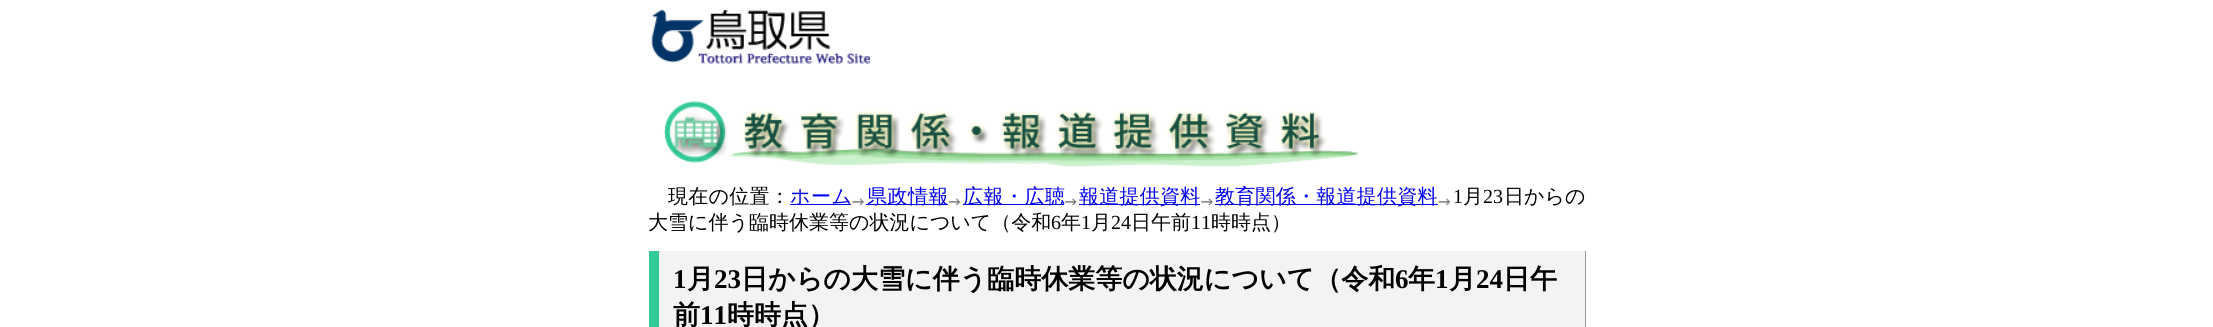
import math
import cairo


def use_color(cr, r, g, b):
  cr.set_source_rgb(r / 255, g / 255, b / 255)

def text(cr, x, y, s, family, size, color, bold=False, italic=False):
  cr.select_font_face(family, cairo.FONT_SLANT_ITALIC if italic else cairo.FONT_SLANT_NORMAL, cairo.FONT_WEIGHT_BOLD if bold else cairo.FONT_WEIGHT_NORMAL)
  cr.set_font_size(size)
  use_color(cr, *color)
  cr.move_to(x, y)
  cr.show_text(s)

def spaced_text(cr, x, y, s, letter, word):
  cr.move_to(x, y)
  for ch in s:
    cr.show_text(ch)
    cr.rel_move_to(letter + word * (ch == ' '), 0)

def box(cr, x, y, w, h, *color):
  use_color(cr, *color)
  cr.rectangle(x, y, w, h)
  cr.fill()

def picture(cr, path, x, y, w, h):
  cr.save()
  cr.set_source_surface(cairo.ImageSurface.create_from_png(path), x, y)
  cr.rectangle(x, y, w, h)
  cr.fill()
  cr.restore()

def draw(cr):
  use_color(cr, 255, 255, 255)
  cr.paint()
  picture(cr, "img_01.png", 651, 10, 219, 54)
  picture(cr, "img_02.png", 663, 101, 695, 66)
  box(cr, 790, 204, 61, 1, 0, 0, 238)
  picture(cr, "img_03.png", 852, 198, 12, 8)
  box(cr, 866, 204, 82, 1, 0, 0, 238)
  picture(cr, "img_04.png", 948, 198, 13, 8)
  box(cr, 963, 204, 101, 1, 0, 0, 238)
  picture(cr, "img_05.png", 1064, 198, 13, 8)
  box(cr, 1079, 204, 121, 1, 0, 0, 238)
  picture(cr, "img_06.png", 1201, 198, 12, 8)
  box(cr, 1215, 204, 223, 1, 0, 0, 238)
  picture(cr, "img_07.png", 1438, 198, 13, 8)
  box(cr, 659, 251, 926, 76, 243, 243, 243)
  box(cr, 1585, 251, 1, 76, 153, 153, 153)
  use_color(cr, 51, 204, 153)
  cr.new_path()
  cr.move_to(649, 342)
  cr.line_to(649, 251)
  cr.line_to(659, 251)
  cr.line_to(659, 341)
  cr.close_path()
  cr.fill()
  cr.select_font_face("WenQuanYi Zen Hei Medium")
  cr.set_font_size(20)
  use_color(cr, 0, 0, 0)
  spaced_text(cr, 668, 203, "現在の位置：", 0.25, 0)
  use_color(cr, 0, 0, 238)
  spaced_text(cr, 790, 203, "ホーム", 0.5, 0)
  spaced_text(cr, 867, 203, "県政情報", 0.5, 0)
  spaced_text(cr, 963, 203, "広報・広聴", 0.5, 0)
  spaced_text(cr, 1079, 203, "報道提供資料", 0.25, 0)
  spaced_text(cr, 1215, 203, "教育関係・報道提供資料", 0.25, 0)
  text(cr, 1453, 203, "1", "Liberation Serif", 20, (0, 0, 0))
  text(cr, 1463, 203, "月", "WenQuanYi Zen Hei Medium", 20, (0, 0, 0))
  text(cr, 1483, 203, "23", "Liberation Serif", 20, (0, 0, 0))
  text(cr, 1504, 203, "日からの", "WenQuanYi Zen Hei Medium", 20, (0, 0, 0))
  text(cr, 648, 229, "大雪に伴う臨時休業等の状況について（令和", "WenQuanYi Zen Hei Medium", 20, (0, 0, 0))
  text(cr, 1051, 229, "6", "Liberation Serif", 20, (0, 0, 0))
  text(cr, 1061, 229, "年", "WenQuanYi Zen Hei Medium", 20, (0, 0, 0))
  text(cr, 1081, 229, "1", "Liberation Serif", 20, (0, 0, 0))
  text(cr, 1091, 229, "月", "WenQuanYi Zen Hei Medium", 20, (0, 0, 0))
  text(cr, 1111, 229, "24", "Liberation Serif", 20, (0, 0, 0))
  text(cr, 1131, 229, "日午前", "WenQuanYi Zen Hei Medium", 20, (0, 0, 0))
  text(cr, 1191, 229, "11", "Liberation Serif", 20, (0, 0, 0))
  text(cr, 1211, 229, "時時点）", "WenQuanYi Zen Hei Medium", 20, (0, 0, 0))
  text(cr, 673, 288, "1", "Liberation Serif", 27, (0, 0, 0), bold=True)
  text(cr, 687, 288, "月", "WenQuanYi Zen Hei", 27, (0, 0, 0), bold=True)
  text(cr, 714, 288, "23", "Liberation Serif", 27, (0, 0, 0), bold=True)
  text(cr, 741, 288, "日からの大雪に伴う臨時休業等の状況について（令和", "WenQuanYi Zen Hei", 27, (0, 0, 0), bold=True)
  text(cr, 1395, 288, "6", "Liberation Serif", 27, (0, 0, 0), bold=True)
  text(cr, 1408, 288, "年", "WenQuanYi Zen Hei", 27, (0, 0, 0), bold=True)
  text(cr, 1435, 288, "1", "Liberation Serif", 27, (0, 0, 0), bold=True)
  text(cr, 1449, 288, "月", "WenQuanYi Zen Hei", 27, (0, 0, 0), bold=True)
  text(cr, 1476, 288, "24", "Liberation Serif", 27, (0, 0, 0), bold=True)
  text(cr, 1503, 288, "日午", "WenQuanYi Zen Hei", 27, (0, 0, 0), bold=True)
  text(cr, 673, 324, "前", "WenQuanYi Zen Hei", 27, (0, 0, 0), bold=True)
  text(cr, 700, 324, "11", "Liberation Serif", 27, (0, 0, 0), bold=True)
  text(cr, 727, 324, "時時点）", "WenQuanYi Zen Hei", 27, (0, 0, 0), bold=True)


surface = cairo.ImageSurface(cairo.FORMAT_RGB24, 2213, 327)
cr = cairo.Context(surface)
options = cairo.FontOptions()
options.set_hint_metrics(cairo.HINT_METRICS_OFF)
options.set_hint_style(cairo.HINT_STYLE_NONE)
cr.set_font_options(options)
cr.set_miter_limit(4)
draw(cr)
surface.write_to_png("out.png")
